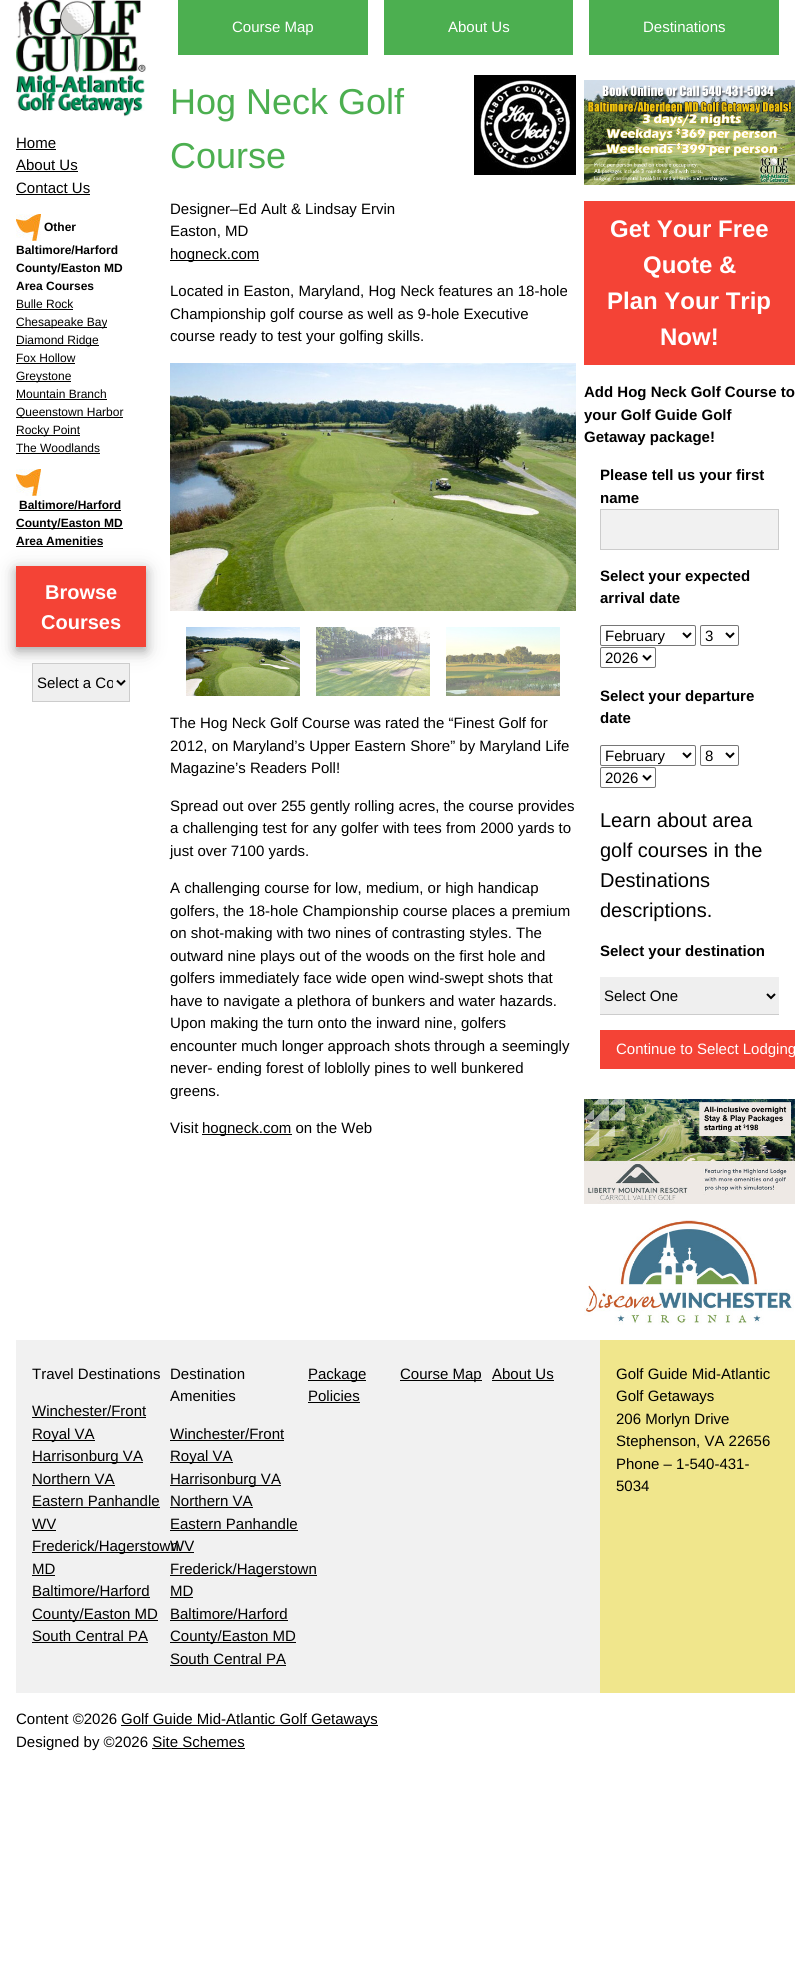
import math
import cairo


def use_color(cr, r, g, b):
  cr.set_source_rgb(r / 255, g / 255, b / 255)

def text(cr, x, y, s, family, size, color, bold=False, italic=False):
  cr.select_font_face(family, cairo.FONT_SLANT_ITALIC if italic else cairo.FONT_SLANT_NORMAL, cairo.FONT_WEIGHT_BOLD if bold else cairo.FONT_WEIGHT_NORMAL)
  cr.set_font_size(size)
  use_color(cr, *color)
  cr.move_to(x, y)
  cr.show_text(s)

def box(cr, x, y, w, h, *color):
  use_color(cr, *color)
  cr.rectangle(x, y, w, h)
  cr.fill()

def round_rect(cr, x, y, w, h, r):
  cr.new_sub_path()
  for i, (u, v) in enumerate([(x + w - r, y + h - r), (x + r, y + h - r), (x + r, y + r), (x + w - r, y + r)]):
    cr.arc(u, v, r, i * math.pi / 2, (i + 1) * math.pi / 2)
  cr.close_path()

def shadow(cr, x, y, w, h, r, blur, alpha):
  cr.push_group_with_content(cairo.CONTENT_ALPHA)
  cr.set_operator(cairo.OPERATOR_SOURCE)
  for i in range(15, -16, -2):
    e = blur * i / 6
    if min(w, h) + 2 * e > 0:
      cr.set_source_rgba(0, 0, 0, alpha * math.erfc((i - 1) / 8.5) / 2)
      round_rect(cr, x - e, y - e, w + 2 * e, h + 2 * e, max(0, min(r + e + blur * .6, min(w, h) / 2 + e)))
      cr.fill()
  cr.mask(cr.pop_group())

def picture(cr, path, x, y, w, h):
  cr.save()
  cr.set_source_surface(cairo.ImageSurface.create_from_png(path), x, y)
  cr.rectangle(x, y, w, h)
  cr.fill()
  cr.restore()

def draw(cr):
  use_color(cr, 255, 255, 255)
  cr.paint()
  picture(cr, "img_01.png", 16, 0, 130, 117)
  box(cr, 16, 149, 40, 1, 0, 0, 0)
  box(cr, 16, 171, 62, 1, 0, 0, 0)
  box(cr, 16, 194, 74, 1, 0, 0, 0)
  picture(cr, "img_02.png", 16, 214, 25, 27)
  box(cr, 16, 309, 57, 1, 0, 0, 0)
  box(cr, 16, 327, 91, 1, 0, 0, 0)
  box(cr, 16, 345, 83, 1, 0, 0, 0)
  box(cr, 16, 363, 59, 1, 0, 0, 0)
  box(cr, 16, 381, 55, 1, 0, 0, 0)
  box(cr, 16, 399, 91, 1, 0, 0, 0)
  box(cr, 16, 417, 107, 1, 0, 0, 0)
  box(cr, 16, 435, 64, 1, 0, 0, 0)
  box(cr, 16, 453, 84, 1, 0, 0, 0)
  picture(cr, "img_02.png", 16, 469, 25, 27)
  box(cr, 19, 510, 102, 1, 0, 0, 0)
  box(cr, 16, 528, 107, 1, 0, 0, 0)
  use_color(cr, 0, 0, 0)
  shadow(cr, 16, 570, 130, 81, 0, 10, 0.19)
  box(cr, 16, 546, 87, 1, 0, 0, 0)
  use_color(cr, 0, 0, 0)
  shadow(cr, 16, 570, 130, 81, 0, 5, 0.2)
  box(cr, 16, 566, 130, 81, 244, 67, 54)
  use_color(cr, 239, 239, 239)
  cr.rectangle(32.5, 663.5, 97, 38)
  cr.fill_preserve()
  use_color(cr, 204, 204, 204)
  cr.set_line_width(1)
  cr.stroke()
  cr.new_path()
  cr.move_to(117, 680.5)
  cr.line_to(121, 684.5)
  cr.line_to(125, 680.5)
  use_color(cr, 0, 0, 0)
  cr.set_line_width(2)
  cr.stroke()
  box(cr, 178, 0, 190, 55, 76, 175, 80)
  box(cr, 384, 0, 189, 55, 76, 175, 80)
  box(cr, 589, 0, 190, 55, 76, 175, 80)
  picture(cr, "img_03.png", 474, 75, 102, 100)
  box(cr, 170, 260, 89, 1, 0, 0, 0)
  picture(cr, "img_04.png", 170, 363, 406, 248)
  picture(cr, "img_05.png", 186, 627, 114, 69)
  picture(cr, "img_06.png", 316, 627, 114, 69)
  picture(cr, "img_07.png", 446, 627, 114, 69)
  box(cr, 202, 1134, 90, 1, 0, 0, 0)
  picture(cr, "img_08.png", 584, 80, 211, 105)
  box(cr, 584, 201, 211, 164, 244, 67, 54)
  use_color(cr, 241, 241, 241)
  cr.rectangle(600.5, 509.5, 178, 40)
  cr.fill_preserve()
  use_color(cr, 204, 204, 204)
  cr.set_line_width(1)
  cr.stroke()
  round_rect(cr, 600.5, 625.5, 95, 20, 1.5)
  use_color(cr, 118, 118, 118)
  cr.stroke()
  cr.new_path()
  cr.move_to(683, 633)
  cr.line_to(687, 637)
  cr.line_to(691, 633)
  use_color(cr, 0, 0, 0)
  cr.set_line_width(2)
  cr.stroke()
  round_rect(cr, 700.5, 625.5, 38, 20, 1.5)
  use_color(cr, 118, 118, 118)
  cr.set_line_width(1)
  cr.stroke()
  cr.new_path()
  cr.move_to(726, 633)
  cr.line_to(730, 637)
  cr.line_to(734, 633)
  use_color(cr, 0, 0, 0)
  cr.set_line_width(2)
  cr.stroke()
  round_rect(cr, 600.5, 647.5, 55, 20, 1.5)
  use_color(cr, 118, 118, 118)
  cr.set_line_width(1)
  cr.stroke()
  cr.new_path()
  cr.move_to(643, 655.5)
  cr.line_to(647, 659.5)
  cr.line_to(651, 655.5)
  use_color(cr, 0, 0, 0)
  cr.set_line_width(2)
  cr.stroke()
  round_rect(cr, 600.5, 745.5, 95, 20, 1.5)
  use_color(cr, 118, 118, 118)
  cr.set_line_width(1)
  cr.stroke()
  cr.new_path()
  cr.move_to(683, 753)
  cr.line_to(687, 757)
  cr.line_to(691, 753)
  use_color(cr, 0, 0, 0)
  cr.set_line_width(2)
  cr.stroke()
  round_rect(cr, 700.5, 745.5, 38, 20, 1.5)
  use_color(cr, 118, 118, 118)
  cr.set_line_width(1)
  cr.stroke()
  cr.new_path()
  cr.move_to(726, 753)
  cr.line_to(730, 757)
  cr.line_to(734, 753)
  use_color(cr, 0, 0, 0)
  cr.set_line_width(2)
  cr.stroke()
  round_rect(cr, 600.5, 767.5, 55, 20, 1.5)
  use_color(cr, 118, 118, 118)
  cr.set_line_width(1)
  cr.stroke()
  cr.new_path()
  cr.move_to(643, 775.5)
  cr.line_to(647, 779.5)
  cr.line_to(651, 775.5)
  use_color(cr, 0, 0, 0)
  cr.set_line_width(2)
  cr.stroke()
  box(cr, 600, 977, 179, 37, 239, 239, 239)
  box(cr, 600, 1014, 179, 1, 204, 204, 204)
  cr.new_path()
  cr.move_to(767, 994)
  cr.line_to(771, 998)
  cr.line_to(775, 994)
  use_color(cr, 0, 0, 0)
  cr.stroke()
  box(cr, 600, 1030, 195, 39, 244, 67, 54)
  picture(cr, "img_09.png", 584, 1099, 211, 105)
  picture(cr, "img_10.png", 584, 1220, 210, 105)
  box(cr, 600, 1340, 195, 353, 240, 230, 140)
  box(cr, 16, 1340, 584, 353, 241, 241, 241)
  box(cr, 32, 1417, 114, 1, 0, 0, 0)
  box(cr, 32, 1440, 63, 1, 0, 0, 0)
  box(cr, 32, 1462, 111, 1, 0, 0, 0)
  box(cr, 32, 1485, 83, 1, 0, 0, 0)
  box(cr, 32, 1507, 128, 1, 0, 0, 0)
  box(cr, 32, 1530, 24, 1, 0, 0, 0)
  box(cr, 32, 1552, 138, 1, 0, 0, 0)
  box(cr, 32, 1575, 23, 1, 0, 0, 0)
  box(cr, 32, 1597, 118, 1, 0, 0, 0)
  box(cr, 32, 1620, 126, 1, 0, 0, 0)
  box(cr, 32, 1642, 116, 1, 0, 0, 0)
  box(cr, 170, 1440, 114, 1, 0, 0, 0)
  box(cr, 170, 1462, 63, 1, 0, 0, 0)
  box(cr, 170, 1485, 111, 1, 0, 0, 0)
  box(cr, 170, 1507, 83, 1, 0, 0, 0)
  box(cr, 170, 1530, 128, 1, 0, 0, 0)
  box(cr, 170, 1552, 24, 1, 0, 0, 0)
  box(cr, 170, 1575, 147, 1, 0, 0, 0)
  box(cr, 170, 1597, 23, 1, 0, 0, 0)
  box(cr, 170, 1620, 118, 1, 0, 0, 0)
  box(cr, 170, 1642, 126, 1, 0, 0, 0)
  box(cr, 170, 1665, 116, 1, 0, 0, 0)
  box(cr, 308, 1380, 58, 1, 0, 0, 0)
  box(cr, 308, 1402, 52, 1, 0, 0, 0)
  box(cr, 400, 1380, 82, 1, 0, 0, 0)
  box(cr, 492, 1380, 62, 1, 0, 0, 0)
  box(cr, 121, 1725, 257, 1, 0, 0, 0)
  box(cr, 152, 1748, 93, 1, 0, 0, 0)
  text(cr, 16, 148, "Home", "Liberation Sans", 15, (0, 0, 0))
  text(cr, 16, 170, "About Us", "Liberation Sans", 15, (0, 0, 0))
  text(cr, 16, 193, "Contact Us", "Liberation Sans", 15, (0, 0, 0))
  text(cr, 44, 231, "Other", "Liberation Sans", 12, (0, 0, 0), bold=True)
  text(cr, 16, 254, "Baltimore/Harford", "Liberation Sans", 12, (0, 0, 0), bold=True)
  text(cr, 16, 272, "County/Easton MD", "Liberation Sans", 12, (0, 0, 0), bold=True)
  text(cr, 16, 290, "Area Courses", "Liberation Sans", 12, (0, 0, 0), bold=True)
  text(cr, 16, 308, "Bulle Rock", "Liberation Sans", 12, (0, 0, 0))
  text(cr, 16, 326, "Chesapeake Bay", "Liberation Sans", 12, (0, 0, 0))
  text(cr, 16, 344, "Diamond Ridge", "Liberation Sans", 12, (0, 0, 0))
  text(cr, 16, 362, "Fox Hollow", "Liberation Sans", 12, (0, 0, 0))
  text(cr, 16, 380, "Greystone", "Liberation Sans", 12, (0, 0, 0))
  text(cr, 16, 398, "Mountain Branch", "Liberation Sans", 12, (0, 0, 0))
  text(cr, 16, 416, "Queenstown Harbor", "Liberation Sans", 12, (0, 0, 0))
  text(cr, 16, 434, "Rocky Point", "Liberation Sans", 12, (0, 0, 0))
  text(cr, 16, 452, "The Woodlands", "Liberation Sans", 12, (0, 0, 0))
  text(cr, 19, 509, "Baltimore/Harford", "Liberation Sans", 12, (0, 0, 0), bold=True)
  text(cr, 16, 527, "County/Easton MD", "Liberation Sans", 12, (0, 0, 0), bold=True)
  text(cr, 16, 545, "Area Amenities", "Liberation Sans", 12, (0, 0, 0), bold=True)
  text(cr, 45, 599, "Browse", "Liberation Sans", 20, (255, 255, 255), bold=True)
  text(cr, 41, 629, "Courses", "Liberation Sans", 20, (255, 255, 255), bold=True)
  cr.save()
  cr.rectangle(37, 673, 76, 19)
  cr.clip()
  text(cr, 37, 688, "Select a Co", "Liberation Sans", 15, (0, 0, 0))
  cr.restore()
  text(cr, 232, 32, "Course Map", "Liberation Sans", 15, (255, 255, 255))
  text(cr, 448, 32, "About Us", "Liberation Sans", 15, (255, 255, 255))
  text(cr, 643, 32, "Destinations", "Liberation Sans", 15, (255, 255, 255))
  text(cr, 170, 114, "Hog Neck Golf", "Liberation Sans", 36, (76, 175, 80))
  text(cr, 170, 168, "Course", "Liberation Sans", 36, (76, 175, 80))
  text(cr, 170, 214, "Designer–Ed Ault & Lindsay Ervin", "Liberation Sans", 15, (0, 0, 0))
  text(cr, 170, 236, "Easton, MD", "Liberation Sans", 15, (0, 0, 0))
  text(cr, 170, 259, "hogneck.com", "Liberation Sans", 15, (0, 0, 0))
  text(cr, 170, 296, "Located in Easton, Maryland, Hog Neck features an 18-hole", "Liberation Sans", 15, (0, 0, 0))
  text(cr, 170, 319, "Championship golf course as well as 9-hole Executive", "Liberation Sans", 15, (0, 0, 0))
  text(cr, 170, 341, "course ready to test your golfing skills.", "Liberation Sans", 15, (0, 0, 0))
  text(cr, 170, 728, "The Hog Neck Golf Course was rated the “Finest Golf for", "Liberation Sans", 15, (0, 0, 0))
  text(cr, 170, 751, "2012, on Maryland’s Upper Eastern Shore” by Maryland Life", "Liberation Sans", 15, (0, 0, 0))
  text(cr, 170, 773, "Magazine’s Readers Poll!", "Liberation Sans", 15, (0, 0, 0))
  text(cr, 170, 811, "Spread out over 255 gently rolling acres, the course provides", "Liberation Sans", 15, (0, 0, 0))
  text(cr, 170, 833, "a challenging test for any golfer with tees from 2000 yards to", "Liberation Sans", 15, (0, 0, 0))
  text(cr, 170, 856, "just over 7100 yards.", "Liberation Sans", 15, (0, 0, 0))
  text(cr, 170, 893, "A challenging course for low, medium, or high handicap", "Liberation Sans", 15, (0, 0, 0))
  text(cr, 170, 916, "golfers, the 18-hole Championship course places a premium", "Liberation Sans", 15, (0, 0, 0))
  text(cr, 170, 938, "on shot-making with two nines of contrasting styles. The", "Liberation Sans", 15, (0, 0, 0))
  text(cr, 170, 961, "outward nine plays out of the woods on the first hole and", "Liberation Sans", 15, (0, 0, 0))
  text(cr, 170, 983, "golfers immediately face wide open wind-swept shots that", "Liberation Sans", 15, (0, 0, 0))
  text(cr, 170, 1006, "have to navigate a plethora of bunkers and water hazards.", "Liberation Sans", 15, (0, 0, 0))
  text(cr, 170, 1028, "Upon making the turn onto the inward nine, golfers", "Liberation Sans", 15, (0, 0, 0))
  text(cr, 170, 1051, "encounter much longer approach shots through a seemingly", "Liberation Sans", 15, (0, 0, 0))
  text(cr, 170, 1073, "never- ending forest of loblolly pines to well bunkered", "Liberation Sans", 15, (0, 0, 0))
  text(cr, 170, 1096, "greens.", "Liberation Sans", 15, (0, 0, 0))
  text(cr, 170, 1133, "Visit", "Liberation Sans", 15, (0, 0, 0))
  text(cr, 202, 1133, "hogneck.com on the Web", "Liberation Sans", 15, (0, 0, 0))
  text(cr, 610, 237, "Get Your Free", "Liberation Sans", 24, (255, 255, 255), bold=True)
  text(cr, 643, 273, "Quote &", "Liberation Sans", 24, (255, 255, 255), bold=True)
  text(cr, 607, 309, "Plan Your Trip", "Liberation Sans", 24, (255, 255, 255), bold=True)
  text(cr, 660, 345, "Now!", "Liberation Sans", 24, (255, 255, 255), bold=True)
  text(cr, 584, 397, "Add Hog Neck Golf Course to", "Liberation Sans", 15, (0, 0, 0), bold=True)
  text(cr, 584, 420, "your Golf Guide Golf", "Liberation Sans", 15, (0, 0, 0), bold=True)
  text(cr, 584, 442, "Getaway package!", "Liberation Sans", 15, (0, 0, 0), bold=True)
  text(cr, 600, 480, "Please tell us your first", "Liberation Sans", 15, (0, 0, 0), bold=True)
  text(cr, 600, 503, "name", "Liberation Sans", 15, (0, 0, 0), bold=True)
  text(cr, 600, 581, "Select your expected", "Liberation Sans", 15, (0, 0, 0), bold=True)
  text(cr, 600, 603, "arrival date", "Liberation Sans", 15, (0, 0, 0), bold=True)
  text(cr, 605, 641, "February", "Liberation Sans", 15, (0, 0, 0))
  text(cr, 705, 641, "3", "Liberation Sans", 15, (0, 0, 0))
  text(cr, 605, 663, "2026", "Liberation Sans", 15, (0, 0, 0))
  text(cr, 600, 701, "Select your departure", "Liberation Sans", 15, (0, 0, 0), bold=True)
  text(cr, 600, 723, "date", "Liberation Sans", 15, (0, 0, 0), bold=True)
  text(cr, 605, 761, "February", "Liberation Sans", 15, (0, 0, 0))
  text(cr, 705, 761, "8", "Liberation Sans", 15, (0, 0, 0))
  text(cr, 605, 783, "2026", "Liberation Sans", 15, (0, 0, 0))
  text(cr, 600, 827, "Learn about area", "Liberation Sans", 20, (0, 0, 0))
  text(cr, 600, 857, "golf courses in the", "Liberation Sans", 20, (0, 0, 0))
  text(cr, 600, 887, "Destinations", "Liberation Sans", 20, (0, 0, 0))
  text(cr, 600, 917, "descriptions.", "Liberation Sans", 20, (0, 0, 0))
  text(cr, 600, 956, "Select your destination", "Liberation Sans", 15, (0, 0, 0), bold=True)
  text(cr, 604, 1001, "Select One", "Liberation Sans", 15, (0, 0, 0))
  text(cr, 616, 1054, "Continue to Select Lodging", "Liberation Sans", 15, (255, 255, 255))
  text(cr, 32, 1379, "Travel Destinations", "Liberation Sans", 15, (0, 0, 0))
  text(cr, 32, 1416, "Winchester/Front", "Liberation Sans", 15, (0, 0, 0))
  text(cr, 32, 1439, "Royal VA", "Liberation Sans", 15, (0, 0, 0))
  text(cr, 32, 1461, "Harrisonburg VA", "Liberation Sans", 15, (0, 0, 0))
  text(cr, 32, 1484, "Northern VA", "Liberation Sans", 15, (0, 0, 0))
  text(cr, 32, 1506, "Eastern Panhandle", "Liberation Sans", 15, (0, 0, 0))
  text(cr, 32, 1529, "WV", "Liberation Sans", 15, (0, 0, 0))
  text(cr, 32, 1551, "Frederick/Hagerstown", "Liberation Sans", 15, (0, 0, 0))
  text(cr, 32, 1574, "MD", "Liberation Sans", 15, (0, 0, 0))
  text(cr, 32, 1596, "Baltimore/Harford", "Liberation Sans", 15, (0, 0, 0))
  text(cr, 32, 1619, "County/Easton MD", "Liberation Sans", 15, (0, 0, 0))
  text(cr, 32, 1641, "South Central PA", "Liberation Sans", 15, (0, 0, 0))
  text(cr, 170, 1379, "Destination", "Liberation Sans", 15, (0, 0, 0))
  text(cr, 170, 1401, "Amenities", "Liberation Sans", 15, (0, 0, 0))
  text(cr, 170, 1439, "Winchester/Front", "Liberation Sans", 15, (0, 0, 0))
  text(cr, 170, 1461, "Royal VA", "Liberation Sans", 15, (0, 0, 0))
  text(cr, 170, 1484, "Harrisonburg VA", "Liberation Sans", 15, (0, 0, 0))
  text(cr, 170, 1506, "Northern VA", "Liberation Sans", 15, (0, 0, 0))
  text(cr, 170, 1529, "Eastern Panhandle", "Liberation Sans", 15, (0, 0, 0))
  text(cr, 170, 1551, "WV", "Liberation Sans", 15, (0, 0, 0))
  text(cr, 170, 1574, "Frederick/Hagerstown", "Liberation Sans", 15, (0, 0, 0))
  text(cr, 170, 1596, "MD", "Liberation Sans", 15, (0, 0, 0))
  text(cr, 170, 1619, "Baltimore/Harford", "Liberation Sans", 15, (0, 0, 0))
  text(cr, 170, 1641, "County/Easton MD", "Liberation Sans", 15, (0, 0, 0))
  text(cr, 170, 1664, "South Central PA", "Liberation Sans", 15, (0, 0, 0))
  text(cr, 308, 1379, "Package", "Liberation Sans", 15, (0, 0, 0))
  text(cr, 308, 1401, "Policies", "Liberation Sans", 15, (0, 0, 0))
  text(cr, 400, 1379, "Course Map", "Liberation Sans", 15, (0, 0, 0))
  text(cr, 492, 1379, "About Us", "Liberation Sans", 15, (0, 0, 0))
  text(cr, 616, 1379, "Golf Guide Mid-Atlantic", "Liberation Sans", 15, (0, 0, 0))
  text(cr, 616, 1401, "Golf Getaways", "Liberation Sans", 15, (0, 0, 0))
  text(cr, 616, 1424, "206 Morlyn Drive", "Liberation Sans", 15, (0, 0, 0))
  text(cr, 616, 1446, "Stephenson, VA 22656", "Liberation Sans", 15, (0, 0, 0))
  text(cr, 616, 1469, "Phone – 1-540-431-", "Liberation Sans", 15, (0, 0, 0))
  text(cr, 616, 1491, "5034", "Liberation Sans", 15, (0, 0, 0))
  text(cr, 16, 1724, "Content ©2026", "Liberation Sans", 15, (0, 0, 0))
  text(cr, 121, 1724, "Golf Guide Mid-Atlantic Golf Getaways", "Liberation Sans", 15, (0, 0, 0))
  text(cr, 16, 1747, "Designed by ©2026 Site Schemes", "Liberation Sans", 15, (0, 0, 0))


surface = cairo.ImageSurface(cairo.FORMAT_RGB24, 811, 1961)
cr = cairo.Context(surface)
options = cairo.FontOptions()
options.set_hint_metrics(cairo.HINT_METRICS_OFF)
options.set_hint_style(cairo.HINT_STYLE_NONE)
cr.set_font_options(options)
cr.set_miter_limit(4)
draw(cr)
surface.write_to_png("out.png")
